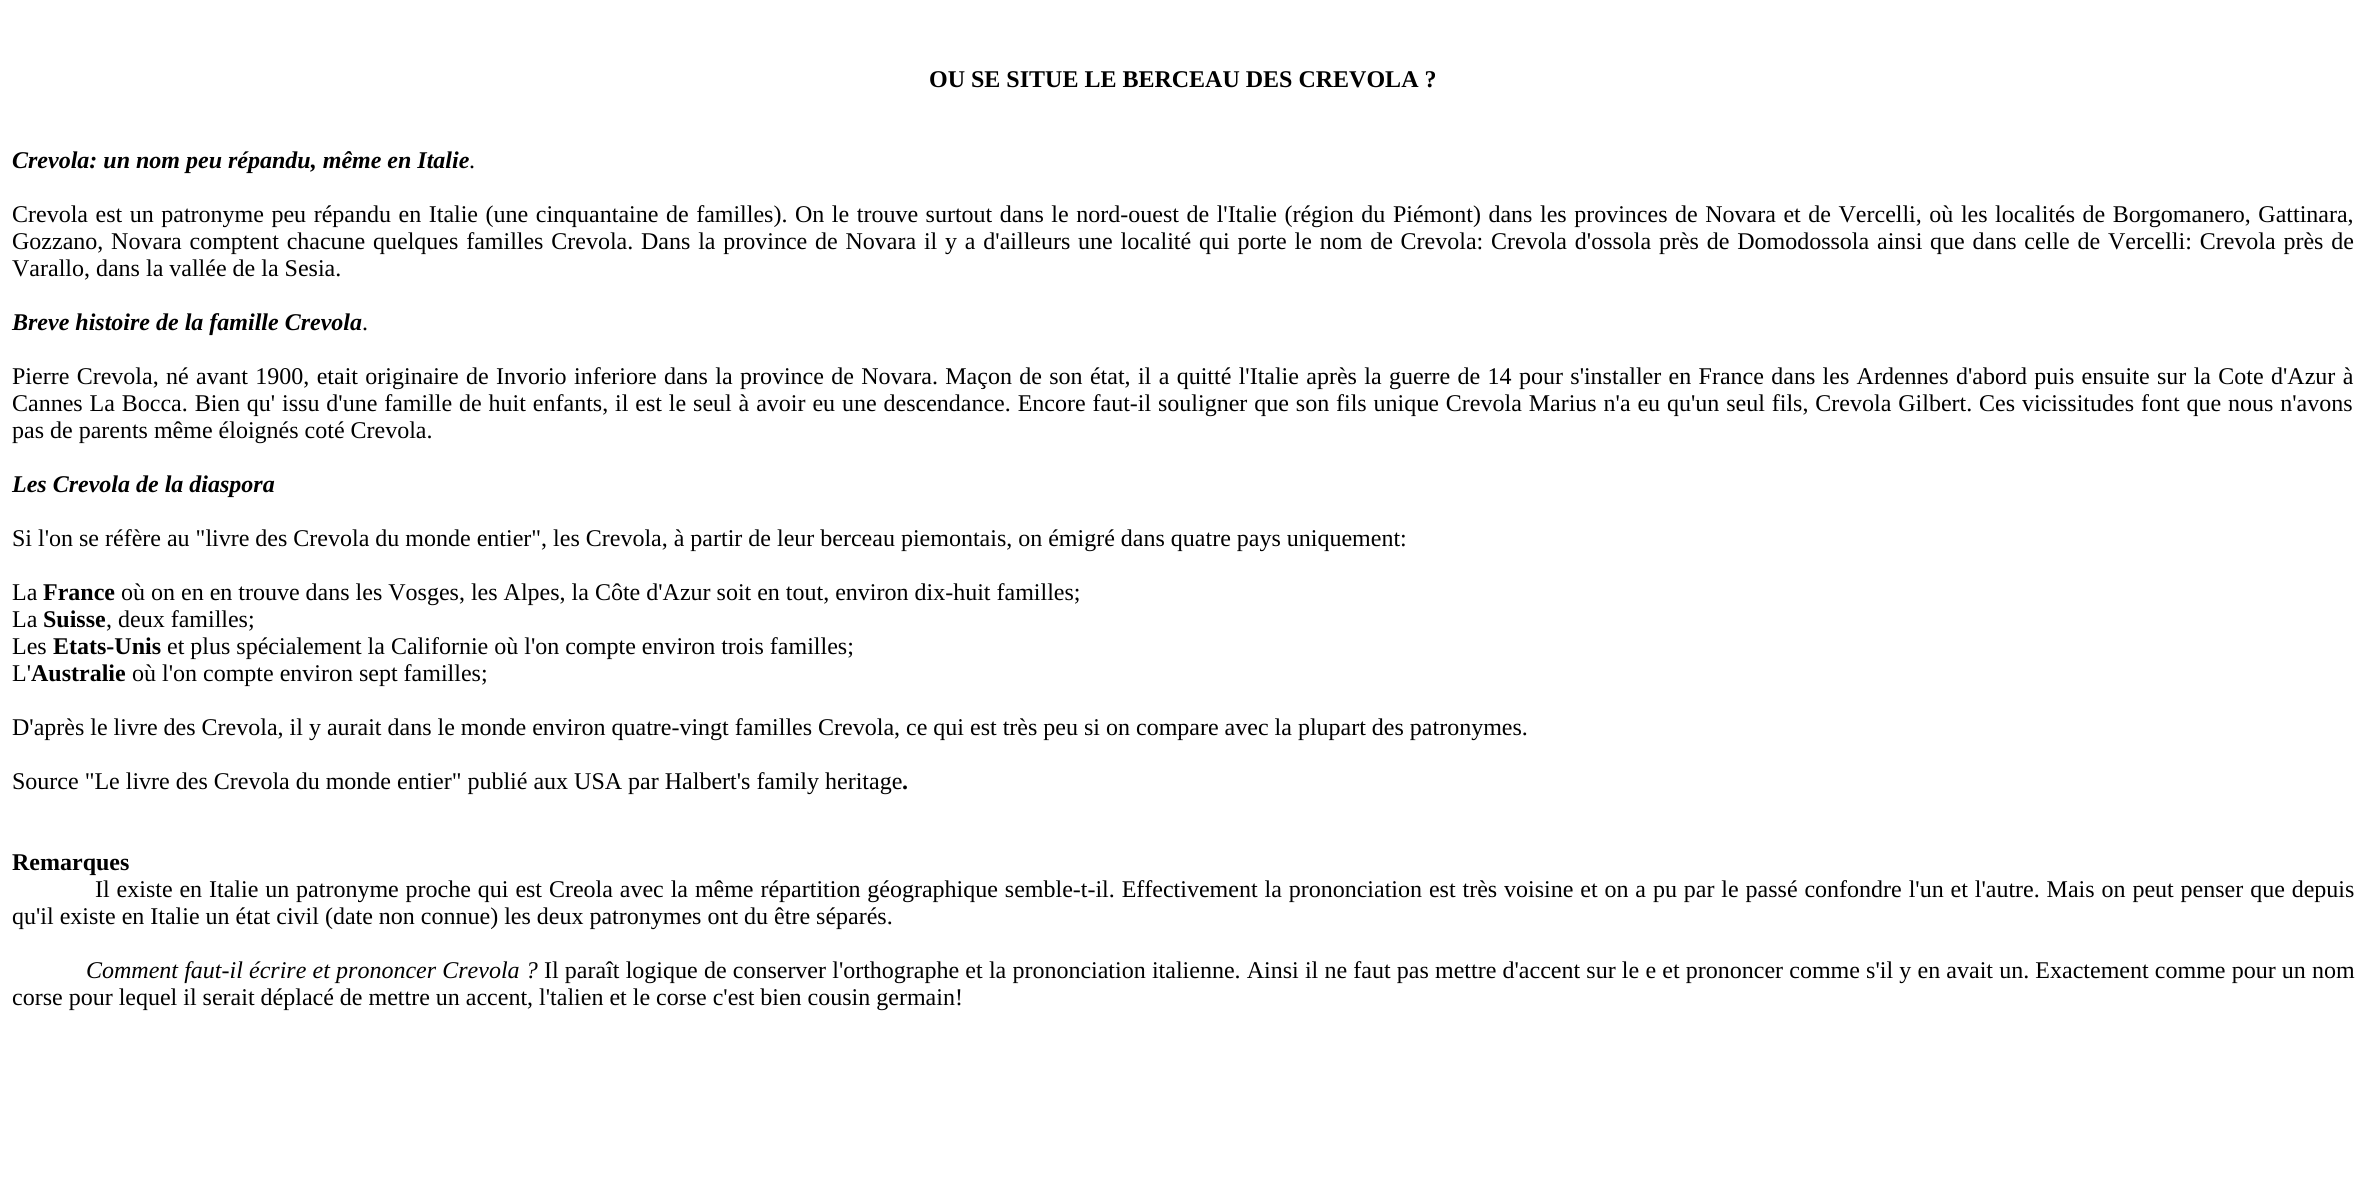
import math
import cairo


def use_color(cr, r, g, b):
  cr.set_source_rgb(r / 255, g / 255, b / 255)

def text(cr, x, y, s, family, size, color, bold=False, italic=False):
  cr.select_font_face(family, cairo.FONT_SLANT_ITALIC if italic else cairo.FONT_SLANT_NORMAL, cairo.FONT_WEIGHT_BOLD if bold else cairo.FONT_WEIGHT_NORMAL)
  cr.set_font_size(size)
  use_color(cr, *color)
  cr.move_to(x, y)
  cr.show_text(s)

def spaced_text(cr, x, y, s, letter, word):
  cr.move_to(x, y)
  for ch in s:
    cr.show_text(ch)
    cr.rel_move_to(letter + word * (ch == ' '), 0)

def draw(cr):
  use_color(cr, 255, 255, 255)
  cr.paint()
  text(cr, 929, 87, "OU SE SITUE LE BERCEAU DES CREVOLA ?", "Liberation Serif", 24, (0, 0, 0), bold=True)
  text(cr, 12, 168, "Crevola: un nom peu répandu, même en Italie", "Liberation Serif", 24, (0, 0, 0), bold=True, italic=True)
  text(cr, 469, 168, ".", "Liberation Serif", 24, (0, 0, 0))
  spaced_text(cr, 12, 222, "Crevola est un patronyme peu répandu en Italie (une cinquantaine de familles). On le trouve surtout dans le nord-ouest de l'Italie (région du Piémont) dans les provinces de Novara et de Vercelli, où les localités de Borgomanero, Gattinara,", 0, 1.55)
  spaced_text(cr, 12, 249, "Gozzano, Novara comptent chacune quelques familles Crevola. Dans la province de Novara il y a d'ailleurs une localité qui porte le nom de Crevola: Crevola d'ossola près de Domodossola ainsi que dans celle de Vercelli: Crevola près de", 0, 1.8)
  text(cr, 12, 276, "Varallo, dans la vallée de la Sesia.", "Liberation Serif", 24, (0, 0, 0))
  text(cr, 12, 330, "Breve histoire de la famille Crevola", "Liberation Serif", 24, (0, 0, 0), bold=True, italic=True)
  text(cr, 362, 330, ".", "Liberation Serif", 24, (0, 0, 0))
  spaced_text(cr, 12, 384, "Pierre Crevola, né avant 1900, etait originaire de Invorio inferiore dans la province de Novara. Maçon de son état, il a quitté l'Italie après la guerre de 14 pour s'installer en France dans les Ardennes d'abord puis ensuite sur la Cote d'Azur à", 0, 1.35)
  spaced_text(cr, 12, 411, "Cannes La Bocca. Bien qu' issu d'une famille de huit enfants, il est le seul à avoir eu une descendance. Encore faut-il souligner que son fils unique Crevola Marius n'a eu qu'un seul fils, Crevola Gilbert. Ces vicissitudes font que nous n'avons", 0, 0.9)
  text(cr, 12, 438, "pas de parents même éloignés coté Crevola.", "Liberation Serif", 24, (0, 0, 0))
  text(cr, 12, 492, "Les Crevola de la diaspora", "Liberation Serif", 24, (0, 0, 0), bold=True, italic=True)
  text(cr, 12, 546, "Si l'on se réfère au \"livre des Crevola du monde entier\", les Crevola, à partir de leur berceau piemontais, on émigré dans quatre pays uniquement:", "Liberation Serif", 24, (0, 0, 0))
  text(cr, 12, 600, "La", "Liberation Serif", 24, (0, 0, 0))
  text(cr, 43, 600, "France", "Liberation Serif", 24, (0, 0, 0), bold=True)
  text(cr, 121, 600, "où on en en trouve dans les Vosges, les Alpes, la Côte d'Azur soit en tout, environ dix-huit familles;", "Liberation Serif", 24, (0, 0, 0))
  text(cr, 12, 627, "La", "Liberation Serif", 24, (0, 0, 0))
  text(cr, 43, 627, "Suisse", "Liberation Serif", 24, (0, 0, 0), bold=True)
  text(cr, 106, 627, ", deux familles;", "Liberation Serif", 24, (0, 0, 0))
  text(cr, 12, 654, "Les", "Liberation Serif", 24, (0, 0, 0))
  text(cr, 53, 654, "Etats-Unis", "Liberation Serif", 24, (0, 0, 0), bold=True)
  text(cr, 167, 654, "et plus spécialement la Californie où l'on compte environ trois familles;", "Liberation Serif", 24, (0, 0, 0))
  text(cr, 12, 681, "L'", "Liberation Serif", 24, (0, 0, 0))
  text(cr, 31, 681, "Australie", "Liberation Serif", 24, (0, 0, 0), bold=True)
  text(cr, 132, 681, "où l'on compte environ sept familles;", "Liberation Serif", 24, (0, 0, 0))
  text(cr, 12, 735, "D'après le livre des Crevola, il y aurait dans le monde environ quatre-vingt familles Crevola, ce qui est très peu si on compare avec la plupart des patronymes.", "Liberation Serif", 24, (0, 0, 0))
  text(cr, 12, 789, "Source \"Le livre des Crevola du monde entier\" publié aux USA par Halbert's family heritage", "Liberation Serif", 24, (0, 0, 0))
  text(cr, 902, 789, ".", "Liberation Serif", 24, (0, 0, 0), bold=True)
  text(cr, 12, 870, "Remarques", "Liberation Serif", 24, (0, 0, 0), bold=True)
  cr.select_font_face("Liberation Serif")
  spaced_text(cr, 95, 897, "Il existe en Italie un patronyme proche qui est Creola avec la même répartition géographique semble-t-il. Effectivement la prononciation est très voisine et on a pu par le passé confondre l'un et l'autre. Mais on peut penser que depuis", 0, 0.9)
  text(cr, 12, 924, "qu'il existe en Italie un état civil (date non connue) les deux patronymes ont du être séparés.", "Liberation Serif", 24, (0, 0, 0))
  cr.select_font_face("Liberation Serif", cairo.FONT_SLANT_ITALIC)
  spaced_text(cr, 86, 978, "Comment faut-il écrire et prononcer Crevola ?", 0, 0.2)
  cr.select_font_face("Liberation Serif")
  spaced_text(cr, 544, 978, "Il paraît logique de conserver l'orthographe et la prononciation italienne. Ainsi il ne faut pas mettre d'accent sur le e et prononcer comme s'il y en avait un. Exactement comme pour un nom", 0, 0.2)
  text(cr, 12, 1005, "corse pour lequel il serait déplacé de mettre un accent, l'talien et le corse c'est bien cousin germain!", "Liberation Serif", 24, (0, 0, 0))


surface = cairo.ImageSurface(cairo.FORMAT_RGB24, 2365, 1196)
cr = cairo.Context(surface)
options = cairo.FontOptions()
options.set_hint_metrics(cairo.HINT_METRICS_OFF)
options.set_hint_style(cairo.HINT_STYLE_NONE)
cr.set_font_options(options)
cr.set_miter_limit(4)
draw(cr)
surface.write_to_png("out.png")
